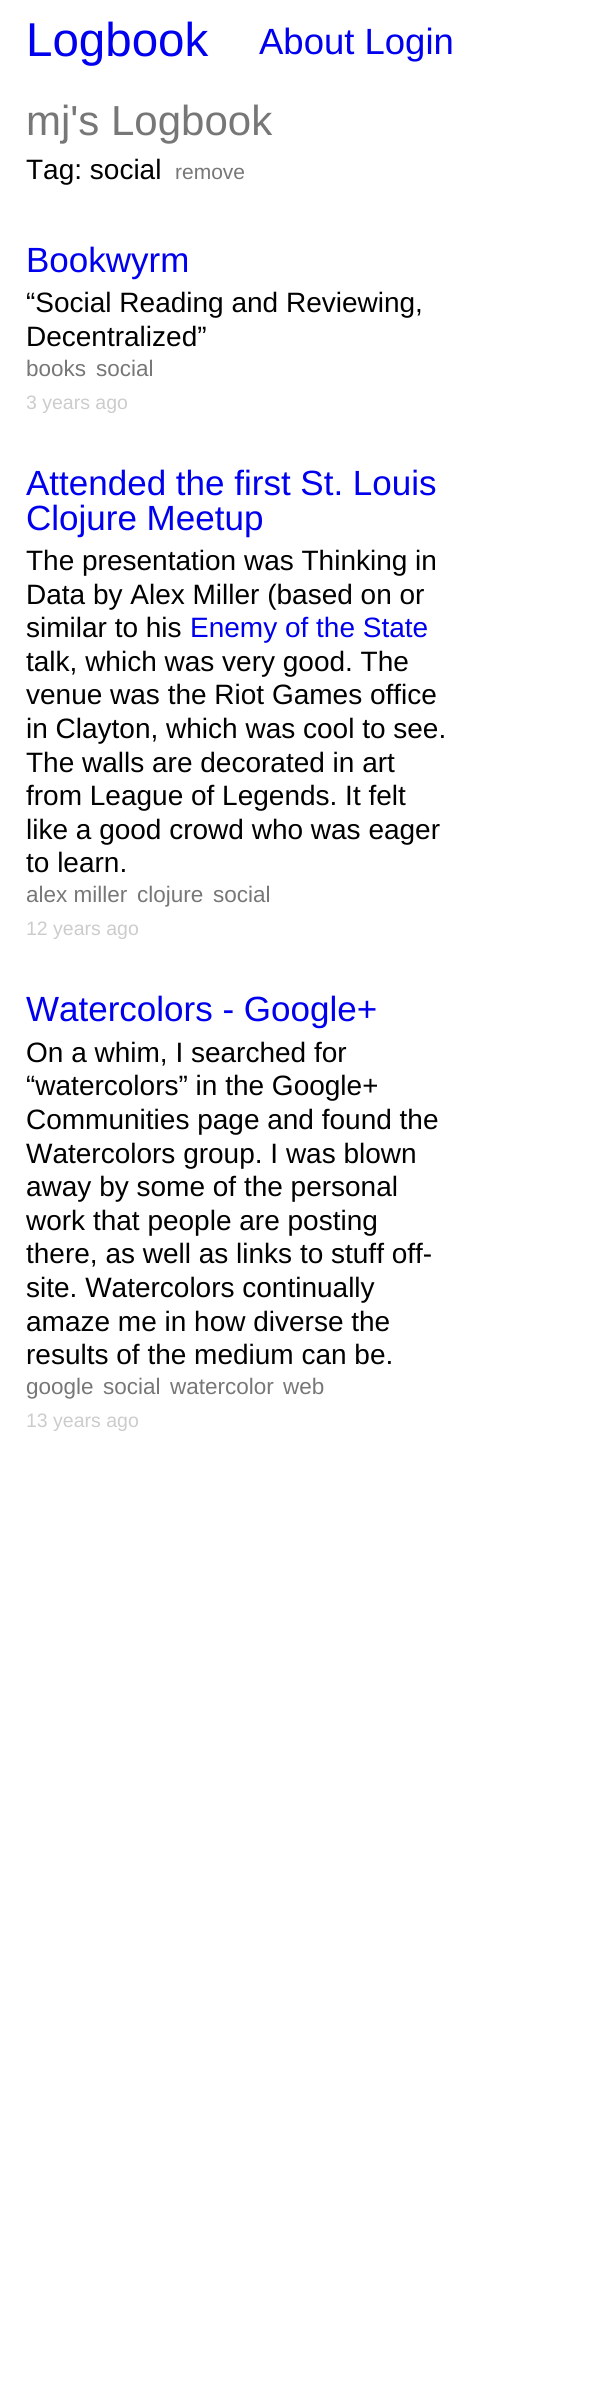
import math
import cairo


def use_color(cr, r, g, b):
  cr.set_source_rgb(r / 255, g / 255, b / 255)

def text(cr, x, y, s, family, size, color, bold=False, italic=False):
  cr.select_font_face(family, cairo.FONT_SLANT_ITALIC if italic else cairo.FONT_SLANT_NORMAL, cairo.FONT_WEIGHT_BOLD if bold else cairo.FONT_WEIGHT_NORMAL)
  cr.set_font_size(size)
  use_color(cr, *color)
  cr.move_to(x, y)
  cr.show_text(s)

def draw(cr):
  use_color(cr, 255, 255, 255)
  cr.paint()
  text(cr, 26, 56, "Logbook", "Liberation Sans", 47.5, (0, 0, 238))
  text(cr, 259, 54, "About Login", "Liberation Sans", 36.5, (0, 0, 238))
  text(cr, 26, 135, "mj's Logbook", "Liberation Sans", 42, (119, 119, 119))
  text(cr, 26, 179, "Tag: social", "Liberation Sans", 28, (0, 0, 0))
  text(cr, 175, 179, "remove", "Liberation Sans", 21, (119, 119, 119))
  text(cr, 26, 272, "Bookwyrm", "Liberation Sans", 35, (0, 0, 238))
  text(cr, 26, 312, "“Social Reading and Reviewing,", "Liberation Sans", 28, (0, 0, 0))
  text(cr, 26, 346, "Decentralized”", "Liberation Sans", 28, (0, 0, 0))
  text(cr, 26, 376, "books", "Liberation Sans", 22.5, (119, 119, 119))
  text(cr, 96, 376, "social", "Liberation Sans", 22.5, (119, 119, 119))
  text(cr, 26, 409, "3 years ago", "Liberation Sans", 19.5, (204, 204, 204))
  text(cr, 26, 495, "Attended the first St. Louis", "Liberation Sans", 35, (0, 0, 238))
  text(cr, 26, 530, "Clojure Meetup", "Liberation Sans", 35, (0, 0, 238))
  text(cr, 26, 570, "The presentation was Thinking in", "Liberation Sans", 28, (0, 0, 0))
  text(cr, 26, 604, "Data by Alex Miller (based on or", "Liberation Sans", 28, (0, 0, 0))
  text(cr, 26, 637, "similar to his", "Liberation Sans", 28, (0, 0, 0))
  text(cr, 190, 637, "Enemy of the State", "Liberation Sans", 28, (0, 0, 238))
  text(cr, 26, 671, "talk, which was very good. The", "Liberation Sans", 28, (0, 0, 0))
  text(cr, 26, 704, "venue was the Riot Games office", "Liberation Sans", 28, (0, 0, 0))
  text(cr, 26, 738, "in Clayton, which was cool to see.", "Liberation Sans", 28, (0, 0, 0))
  text(cr, 26, 772, "The walls are decorated in art", "Liberation Sans", 28, (0, 0, 0))
  text(cr, 26, 805, "from League of Legends. It felt", "Liberation Sans", 28, (0, 0, 0))
  text(cr, 26, 839, "like a good crowd who was eager", "Liberation Sans", 28, (0, 0, 0))
  text(cr, 26, 872, "to learn.", "Liberation Sans", 28, (0, 0, 0))
  text(cr, 26, 902, "alex miller", "Liberation Sans", 22.5, (119, 119, 119))
  text(cr, 137, 902, "clojure", "Liberation Sans", 22.5, (119, 119, 119))
  text(cr, 213, 902, "social", "Liberation Sans", 22.5, (119, 119, 119))
  text(cr, 26, 935, "12 years ago", "Liberation Sans", 19.5, (204, 204, 204))
  text(cr, 26, 1021, "Watercolors - Google+", "Liberation Sans", 35, (0, 0, 238))
  text(cr, 26, 1062, "On a whim, I searched for", "Liberation Sans", 28, (0, 0, 0))
  text(cr, 26, 1095, "“watercolors” in the Google+", "Liberation Sans", 28, (0, 0, 0))
  text(cr, 26, 1129, "Communities page and found the", "Liberation Sans", 28, (0, 0, 0))
  text(cr, 26, 1163, "Watercolors group. I was blown", "Liberation Sans", 28, (0, 0, 0))
  text(cr, 26, 1196, "away by some of the personal", "Liberation Sans", 28, (0, 0, 0))
  text(cr, 26, 1230, "work that people are posting", "Liberation Sans", 28, (0, 0, 0))
  text(cr, 26, 1263, "there, as well as links to stuff off-", "Liberation Sans", 28, (0, 0, 0))
  text(cr, 26, 1297, "site. Watercolors continually", "Liberation Sans", 28, (0, 0, 0))
  text(cr, 26, 1331, "amaze me in how diverse the", "Liberation Sans", 28, (0, 0, 0))
  text(cr, 26, 1364, "results of the medium can be.", "Liberation Sans", 28, (0, 0, 0))
  text(cr, 26, 1394, "google", "Liberation Sans", 22.5, (119, 119, 119))
  text(cr, 103, 1394, "social", "Liberation Sans", 22.5, (119, 119, 119))
  text(cr, 170, 1394, "watercolor", "Liberation Sans", 22.5, (119, 119, 119))
  text(cr, 283, 1394, "web", "Liberation Sans", 22.5, (119, 119, 119))
  text(cr, 26, 1427, "13 years ago", "Liberation Sans", 19.5, (204, 204, 204))


surface = cairo.ImageSurface(cairo.FORMAT_RGB24, 603, 2393)
cr = cairo.Context(surface)
options = cairo.FontOptions()
options.set_hint_metrics(cairo.HINT_METRICS_OFF)
options.set_hint_style(cairo.HINT_STYLE_NONE)
cr.set_font_options(options)
cr.set_miter_limit(4)
draw(cr)
surface.write_to_png("out.png")
